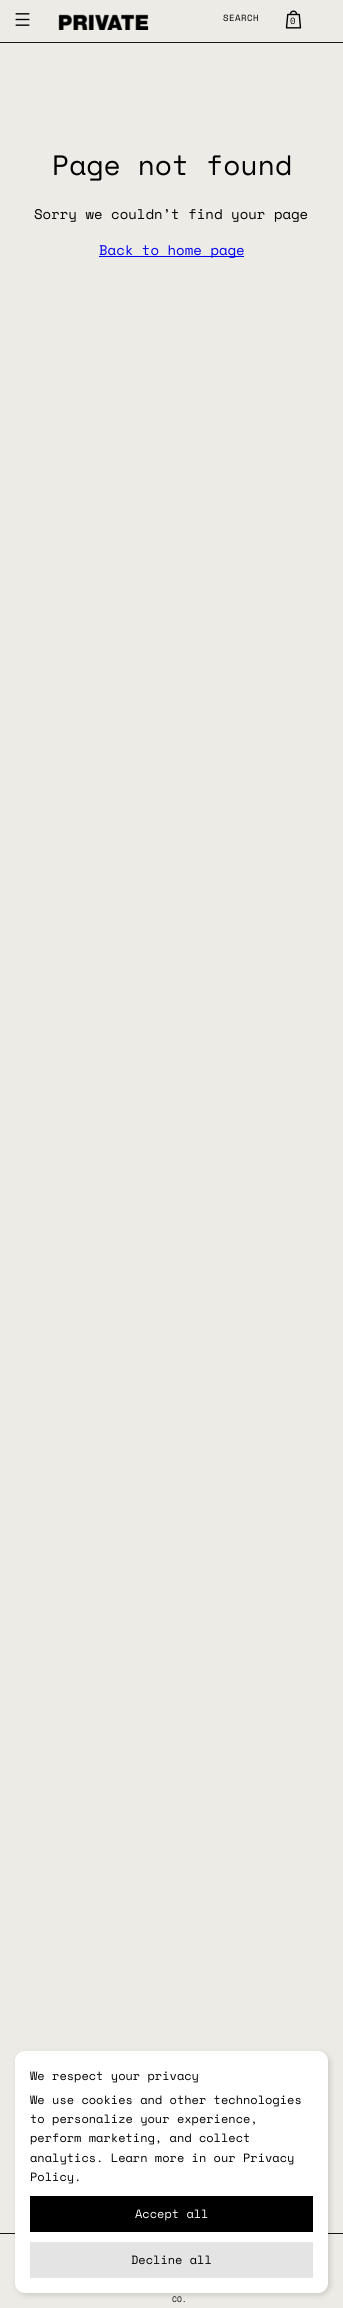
import math
import cairo


def use_color(cr, r, g, b):
  cr.set_source_rgb(r / 255, g / 255, b / 255)

def text(cr, x, y, s, family, size, color, bold=False, italic=False):
  cr.select_font_face(family, cairo.FONT_SLANT_ITALIC if italic else cairo.FONT_SLANT_NORMAL, cairo.FONT_WEIGHT_BOLD if bold else cairo.FONT_WEIGHT_NORMAL)
  cr.set_font_size(size)
  use_color(cr, *color)
  cr.move_to(x, y)
  cr.show_text(s)

def spaced_text(cr, x, y, s, letter, word):
  cr.move_to(x, y)
  for ch in s:
    cr.show_text(ch)
    cr.rel_move_to(letter + word * (ch == ' '), 0)

def box(cr, x, y, w, h, *color):
  use_color(cr, *color)
  cr.rectangle(x, y, w, h)
  cr.fill()

def round_rect(cr, x, y, w, h, r):
  cr.new_sub_path()
  for i, (u, v) in enumerate([(x + w - r, y + h - r), (x + r, y + h - r), (x + r, y + r), (x + w - r, y + r)]):
    cr.arc(u, v, r, i * math.pi / 2, (i + 1) * math.pi / 2)
  cr.close_path()

def shadow(cr, x, y, w, h, r, blur, alpha):
  cr.push_group_with_content(cairo.CONTENT_ALPHA)
  cr.set_operator(cairo.OPERATOR_SOURCE)
  for i in range(15, -16, -2):
    e = blur * i / 6
    if min(w, h) + 2 * e > 0:
      cr.set_source_rgba(0, 0, 0, alpha * math.erfc((i - 1) / 8.5) / 2)
      round_rect(cr, x - e, y - e, w + 2 * e, h + 2 * e, max(0, min(r + e + blur * .6, min(w, h) / 2 + e)))
      cr.fill()
  cr.mask(cr.pop_group())

def picture(cr, path, x, y, w, h):
  cr.save()
  cr.set_source_surface(cairo.ImageSurface.create_from_png(path), x, y)
  cr.rectangle(x, y, w, h)
  cr.fill()
  cr.restore()

def draw(cr):
  use_color(cr, 237, 235, 229)
  cr.paint()
  box(cr, 0, 42, 343, 1, 24, 24, 24)
  picture(cr, "img_01.png", 15, 13, 15, 13)
  picture(cr, "img_02.png", 58, 14, 91, 16)
  picture(cr, "img_03.png", 285, 10, 17, 19)
  box(cr, 99, 256, 145, 1, 0, 0, 238)
  box(cr, 0, 2233, 343, 1, 22, 22, 22)
  use_color(cr, 0, 0, 0)
  shadow(cr, 17, 2053, 313, 242, 10, 3, 0.15)
  use_color(cr, 255, 255, 255)
  round_rect(cr, 15, 2051, 313, 242, 10)
  cr.fill()
  box(cr, 30, 2196, 283, 36, 0, 0, 0)
  box(cr, 30, 2242, 283, 36, 228, 228, 228)
  cr.select_font_face("Space Mono")
  cr.set_font_size(9)
  use_color(cr, 0, 0, 0)
  spaced_text(cr, 223, 21, "SEARCH", 0.5, 0)
  text(cr, 290, 24, "0", "Space Mono", 9, (0, 0, 0))
  text(cr, 52, 175, "Page not found", "Space Mono", 28, (0, 0, 0))
  text(cr, 34, 219, "Sorry we couldn’t find your page", "Space Mono", 14, (0, 0, 0))
  text(cr, 99, 255, "Back to home page", "Space Mono", 14, (0, 0, 238))
  text(cr, 30, 2080, "We respect your privacy", "Space Mono", 12, (0, 0, 0))
  text(cr, 30, 2104, "We use cookies and other technologies", "Space Mono", 12, (0, 0, 0))
  text(cr, 30, 2123, "to personalize your experience,", "Space Mono", 12, (0, 0, 0))
  text(cr, 30, 2142, "perform marketing, and collect", "Space Mono", 12, (0, 0, 0))
  text(cr, 30, 2162, "analytics. Learn more in our Privacy", "Space Mono", 12, (0, 0, 0))
  text(cr, 30, 2181, "Policy.", "Space Mono", 12, (0, 0, 0))
  text(cr, 135, 2218, "Accept all", "Space Mono", 12, (255, 255, 255))
  text(cr, 131, 2264, "Decline all", "Space Mono", 12, (0, 0, 0))
  text(cr, 172, 2302, "CO.", "Space Mono", 8, (0, 0, 0))


surface = cairo.ImageSurface(cairo.FORMAT_RGB24, 343, 2308)
cr = cairo.Context(surface)
options = cairo.FontOptions()
options.set_hint_metrics(cairo.HINT_METRICS_OFF)
options.set_hint_style(cairo.HINT_STYLE_NONE)
cr.set_font_options(options)
cr.set_miter_limit(4)
draw(cr)
surface.write_to_png("out.png")
